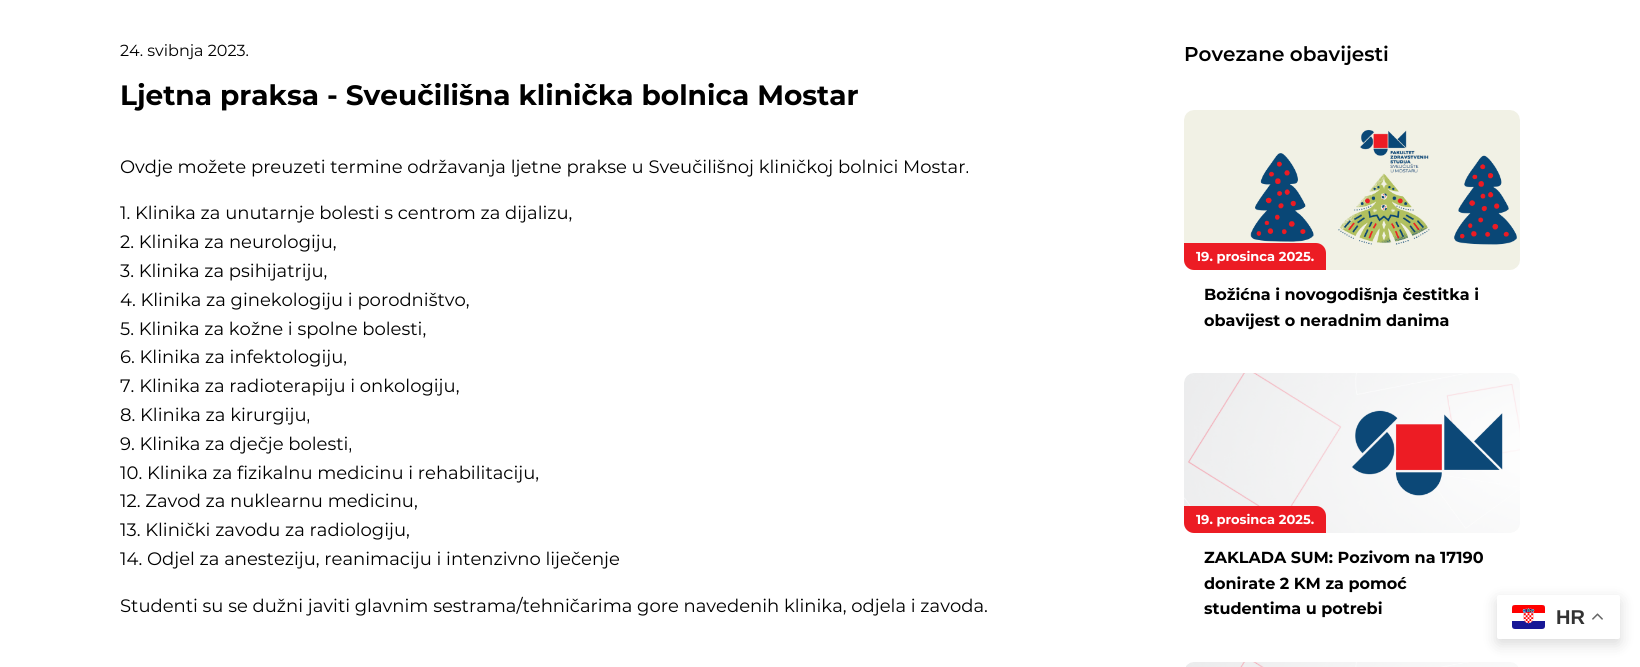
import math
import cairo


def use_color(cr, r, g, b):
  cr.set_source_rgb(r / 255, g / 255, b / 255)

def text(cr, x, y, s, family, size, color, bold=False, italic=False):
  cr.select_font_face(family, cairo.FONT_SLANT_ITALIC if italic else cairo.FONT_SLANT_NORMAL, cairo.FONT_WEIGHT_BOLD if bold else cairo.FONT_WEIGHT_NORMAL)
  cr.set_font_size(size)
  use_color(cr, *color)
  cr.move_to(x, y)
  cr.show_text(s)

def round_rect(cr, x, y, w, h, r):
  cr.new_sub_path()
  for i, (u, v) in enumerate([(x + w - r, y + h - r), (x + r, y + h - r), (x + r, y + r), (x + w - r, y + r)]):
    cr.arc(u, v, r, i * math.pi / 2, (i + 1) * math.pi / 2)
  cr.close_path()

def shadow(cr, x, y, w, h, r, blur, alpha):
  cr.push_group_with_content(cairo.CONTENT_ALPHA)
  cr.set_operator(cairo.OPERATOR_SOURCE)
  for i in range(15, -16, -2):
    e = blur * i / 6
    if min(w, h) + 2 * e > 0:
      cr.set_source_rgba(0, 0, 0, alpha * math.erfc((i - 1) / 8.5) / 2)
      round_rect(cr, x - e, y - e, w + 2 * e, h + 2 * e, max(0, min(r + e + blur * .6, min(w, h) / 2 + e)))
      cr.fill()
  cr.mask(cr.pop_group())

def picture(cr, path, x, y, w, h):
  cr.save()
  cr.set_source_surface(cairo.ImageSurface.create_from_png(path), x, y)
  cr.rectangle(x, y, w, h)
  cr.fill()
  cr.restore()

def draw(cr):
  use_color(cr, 255, 255, 255)
  cr.paint()
  picture(cr, "img_01.png", 1184, 110, 336, 160)
  use_color(cr, 236, 28, 36)
  cr.new_path()
  cr.move_to(1184, 243)
  cr.line_to(1316, 243)
  cr.curve_to(1321.5, 243, 1326, 247.5, 1326, 253)
  cr.line_to(1326, 270)
  cr.line_to(1194, 270)
  cr.curve_to(1188.5, 270, 1184, 265.5, 1184, 260)
  cr.close_path()
  cr.fill()
  picture(cr, "img_02.png", 1184, 373, 336, 160)
  cr.new_path()
  cr.move_to(1184, 506)
  cr.line_to(1316, 506)
  cr.curve_to(1321.5, 506, 1326, 510.5, 1326, 516)
  cr.line_to(1326, 533)
  cr.line_to(1194, 533)
  cr.curve_to(1188.5, 533, 1184, 528.5, 1184, 523)
  cr.close_path()
  cr.fill()
  picture(cr, "img_03.png", 1186, 662, 332, 5)
  use_color(cr, 0, 0, 0)
  shadow(cr, 1497, 600, 123, 44, 2, 7.5, 0.15)
  use_color(cr, 255, 255, 255)
  round_rect(cr, 1497, 595, 123, 44, 2)
  cr.fill()
  picture(cr, "img_04.png", 1512, 605, 33, 24)
  picture(cr, "img_05.png", 1592, 613, 11, 7)
  text(cr, 120, 56, "24. svibnja 2023.", "Montserrat", 16, (0, 0, 0))
  text(cr, 120, 105, "Ljetna praksa - Sveučilišna klinička bolnica Mostar", "Montserrat", 28, (0, 0, 0), bold=True)
  text(cr, 120, 173, "Ovdje možete preuzeti termine održavanja ljetne prakse u Sveučilišnoj kliničkoj bolnici Mostar.", "Montserrat", 18, (0, 0, 0))
  text(cr, 120, 219, "1. Klinika za unutarnje bolesti s centrom za dijalizu,", "Montserrat", 18, (0, 0, 0))
  text(cr, 120, 248, "2. Klinika za neurologiju,", "Montserrat", 18, (0, 0, 0))
  text(cr, 120, 277, "3. Klinika za psihijatriju,", "Montserrat", 18, (0, 0, 0))
  text(cr, 120, 306, "4. Klinika za ginekologiju i porodništvo,", "Montserrat", 18, (0, 0, 0))
  text(cr, 120, 335, "5. Klinika za kožne i spolne bolesti,", "Montserrat", 18, (0, 0, 0))
  text(cr, 120, 363, "6. Klinika za infektologiju,", "Montserrat", 18, (0, 0, 0))
  text(cr, 120, 392, "7. Klinika za radioterapiju i onkologiju,", "Montserrat", 18, (0, 0, 0))
  text(cr, 120, 421, "8. Klinika za kirurgiju,", "Montserrat", 18, (0, 0, 0))
  text(cr, 120, 450, "9. Klinika za dječje bolesti,", "Montserrat", 18, (0, 0, 0))
  text(cr, 120, 479, "10. Klinika za fizikalnu medicinu i rehabilitaciju,", "Montserrat", 18, (0, 0, 0))
  text(cr, 120, 507, "12. Zavod za nuklearnu medicinu,", "Montserrat", 18, (0, 0, 0))
  text(cr, 120, 536, "13. Klinički zavodu za radiologiju,", "Montserrat", 18, (0, 0, 0))
  text(cr, 120, 565, "14. Odjel za anesteziju, reanimaciju i intenzivno liječenje", "Montserrat", 18, (0, 0, 0))
  text(cr, 120, 612, "Studenti su se dužni javiti glavnim sestrama/tehničarima gore navedenih klinika, odjela i zavoda.", "Montserrat", 18, (0, 0, 0))
  text(cr, 1184, 61, "Povezane obavijesti", "Montserrat SemiBold", 20, (0, 0, 0))
  text(cr, 1196, 261, "19. prosinca 2025.", "Montserrat", 13, (255, 255, 255), bold=True)
  text(cr, 1204, 300, "Božićna i novogodišnja čestitka i", "Montserrat", 16, (0, 0, 0), bold=True)
  text(cr, 1204, 326, "obavijest o neradnim danima", "Montserrat", 16, (0, 0, 0), bold=True)
  text(cr, 1196, 524, "19. prosinca 2025.", "Montserrat", 13, (255, 255, 255), bold=True)
  text(cr, 1204, 563, "ZAKLADA SUM: Pozivom na 17190", "Montserrat", 16, (0, 0, 0), bold=True)
  text(cr, 1204, 589, "donirate 2 KM za pomoć", "Montserrat", 16, (0, 0, 0), bold=True)
  text(cr, 1204, 614, "studentima u potrebi", "Montserrat", 16, (0, 0, 0), bold=True)
  text(cr, 1556, 624, "HR", "Liberation Sans", 20, (51, 51, 51), bold=True)


surface = cairo.ImageSurface(cairo.FORMAT_RGB24, 1640, 667)
cr = cairo.Context(surface)
options = cairo.FontOptions()
options.set_hint_metrics(cairo.HINT_METRICS_OFF)
options.set_hint_style(cairo.HINT_STYLE_NONE)
cr.set_font_options(options)
cr.set_miter_limit(4)
draw(cr)
surface.write_to_png("out.png")
